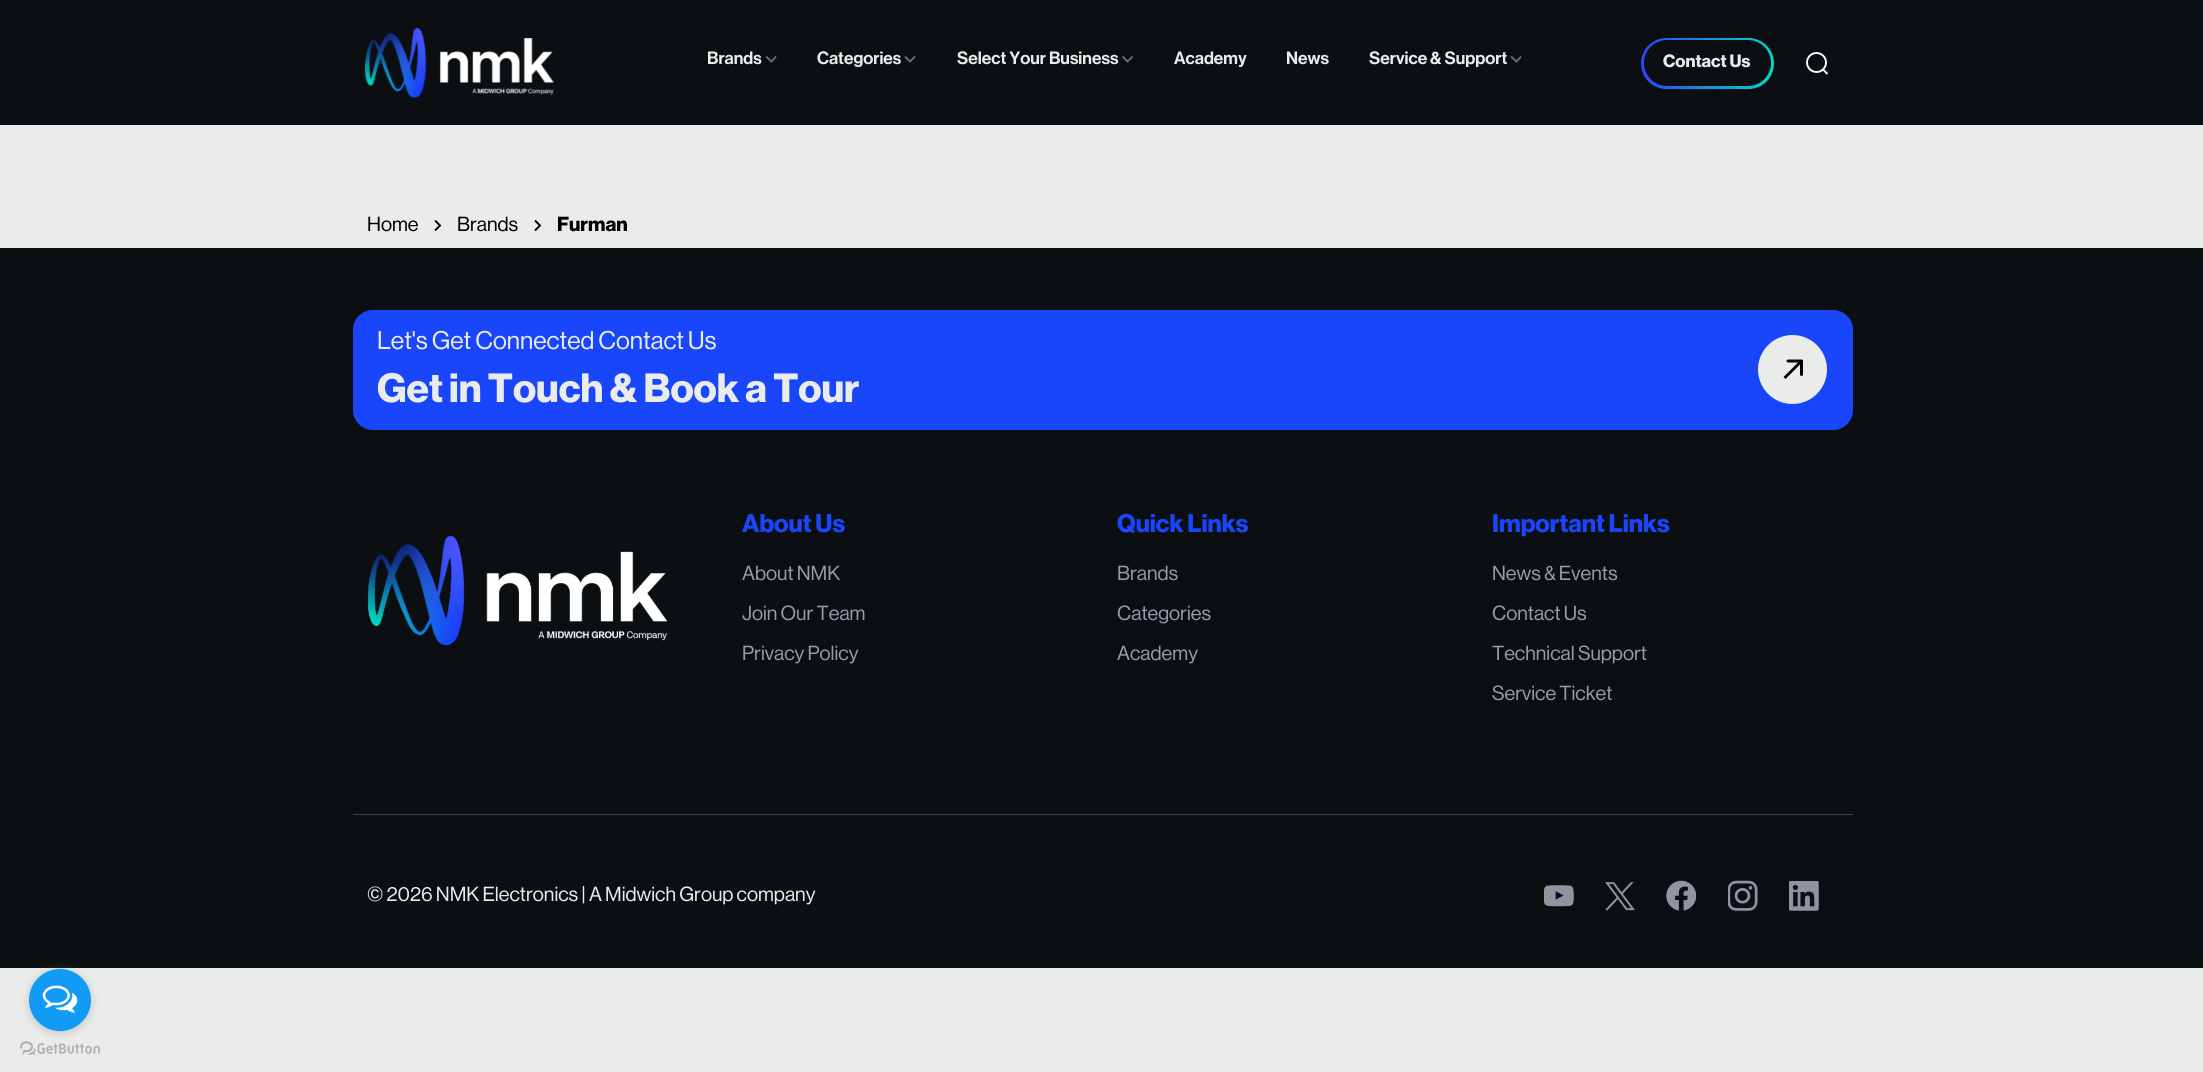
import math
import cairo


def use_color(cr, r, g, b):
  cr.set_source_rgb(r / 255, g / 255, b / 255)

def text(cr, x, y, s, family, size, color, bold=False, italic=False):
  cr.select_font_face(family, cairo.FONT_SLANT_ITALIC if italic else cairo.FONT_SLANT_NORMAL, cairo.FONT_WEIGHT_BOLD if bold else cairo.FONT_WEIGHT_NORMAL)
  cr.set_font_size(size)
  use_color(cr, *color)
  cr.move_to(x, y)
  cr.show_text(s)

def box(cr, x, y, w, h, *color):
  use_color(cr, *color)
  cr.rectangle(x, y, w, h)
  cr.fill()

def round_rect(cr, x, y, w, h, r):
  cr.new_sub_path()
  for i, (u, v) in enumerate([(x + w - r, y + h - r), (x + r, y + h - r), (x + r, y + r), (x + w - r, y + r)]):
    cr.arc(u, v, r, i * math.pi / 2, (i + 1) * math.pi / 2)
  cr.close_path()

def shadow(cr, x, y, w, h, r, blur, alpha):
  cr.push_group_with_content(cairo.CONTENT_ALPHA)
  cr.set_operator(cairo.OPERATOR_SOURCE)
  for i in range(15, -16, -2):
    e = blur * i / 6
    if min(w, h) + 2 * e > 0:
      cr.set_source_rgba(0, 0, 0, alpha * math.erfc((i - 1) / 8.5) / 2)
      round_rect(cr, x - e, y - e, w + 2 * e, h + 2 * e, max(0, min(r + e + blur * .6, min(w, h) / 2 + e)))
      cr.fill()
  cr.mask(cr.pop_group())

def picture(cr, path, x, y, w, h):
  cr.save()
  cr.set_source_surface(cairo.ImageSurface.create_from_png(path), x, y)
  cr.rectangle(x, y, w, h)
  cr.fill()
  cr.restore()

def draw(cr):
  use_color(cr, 234, 235, 235)
  cr.paint()
  box(cr, 0, 0, 2203, 125, 11, 15, 17)
  picture(cr, "img_01.png", 364, 27, 190, 71)
  cr.new_path()
  cr.move_to(766, 56.5)
  cr.line_to(771.5, 61.5)
  cr.line_to(776, 56.5)
  use_color(cr, 106, 107, 116)
  cr.set_line_width(1.9)
  cr.stroke()
  cr.new_path()
  cr.move_to(905, 56.5)
  cr.line_to(910, 61.5)
  cr.line_to(915, 56.5)
  cr.stroke()
  cr.new_path()
  cr.move_to(1122.5, 56.5)
  cr.line_to(1127.5, 61.5)
  cr.line_to(1132.5, 56.5)
  cr.stroke()
  cr.new_path()
  cr.move_to(1511, 56.5)
  cr.line_to(1516.5, 61.5)
  cr.line_to(1521, 56.5)
  cr.stroke()
  gradient = cairo.LinearGradient(1641, 63, 1774, 63)
  gradient.add_color_stop_rgba(0, 0.165, 0.271, 0.984, 1)
  gradient.add_color_stop_rgba(1, 0.004, 0.847, 0.765, 1)
  cr.set_source(gradient)
  round_rect(cr, 1641, 38, 133, 51, 25.5)
  cr.fill()
  use_color(cr, 11, 15, 17)
  round_rect(cr, 1644, 40, 127, 46, 23)
  cr.fill()
  cr.arc(1816.5, 62.5, 9.5, 0, 2 * math.pi)
  use_color(cr, 255, 255, 255)
  cr.stroke()
  cr.new_path()
  cr.move_to(1823, 69.5)
  cr.line_to(1827, 73.5)
  cr.set_line_cap(cairo.LINE_CAP_ROUND)
  cr.set_line_join(cairo.LINE_JOIN_ROUND)
  cr.stroke()
  cr.new_path()
  cr.move_to(435, 230.5)
  cr.line_to(440, 225.5)
  cr.line_to(435, 220.5)
  use_color(cr, 0, 0, 0)
  cr.set_line_cap(cairo.LINE_CAP_BUTT)
  cr.set_line_join(cairo.LINE_JOIN_MITER)
  cr.stroke()
  cr.new_path()
  cr.move_to(535, 230.5)
  cr.line_to(540, 225.5)
  cr.line_to(535, 220.5)
  cr.stroke()
  box(cr, 0, 248, 2203, 720, 11, 15, 17)
  use_color(cr, 25, 70, 250)
  round_rect(cr, 353, 310, 1500, 120, 20)
  cr.fill()
  use_color(cr, 234, 235, 235)
  cr.arc(1792.5, 369.5, 34.5, 0, 2 * math.pi)
  cr.fill()
  use_color(cr, 0, 0, 0)
  cr.new_path()
  cr.move_to(1803, 361)
  cr.curve_to(1803, 360, 1802.5, 359.5, 1801.5, 359.5)
  cr.line_to(1788, 359.5)
  cr.curve_to(1787.5, 359.5, 1786.5, 360, 1786.5, 361)
  cr.curve_to(1786.5, 362, 1787.5, 362.5, 1788, 362.5)
  cr.line_to(1800, 362.5)
  cr.line_to(1800, 374.5)
  cr.curve_to(1800, 375, 1800.5, 376, 1801.5, 376)
  cr.curve_to(1802.5, 376, 1803, 375, 1803, 374.5)
  cr.close_path()
  cr.move_to(1785.5, 379)
  cr.line_to(1802.5, 362)
  cr.line_to(1800.5, 360)
  cr.line_to(1783.5, 377)
  cr.close_path()
  cr.fill()
  picture(cr, "img_02.png", 368, 535, 299, 111)
  box(cr, 353, 814, 1500, 1, 59, 63, 79)
  picture(cr, "img_03.png", 1544, 885, 30, 22)
  picture(cr, "img_04.png", 1605, 882, 30, 29)
  picture(cr, "img_05.png", 1666, 880, 30, 31)
  picture(cr, "img_06.png", 1728, 880, 30, 31)
  picture(cr, "img_07.png", 1789, 881, 30, 30)
  picture(cr, "img_09.png", 20, 1041, 80, 14)
  use_color(cr, 136, 136, 136)
  shadow(cr, 29, 970, 62, 63, 31, 4.5, 0.4)
  use_color(cr, 18, 155, 244)
  cr.arc(60, 1000, 31, 0, 2 * math.pi)
  cr.fill()
  picture(cr, "img_08.png", 42, 985, 36, 28)
  text(cr, 707, 64, "Brands", "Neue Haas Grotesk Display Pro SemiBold", 17.5, (234, 235, 235))
  text(cr, 817, 64, "Categories", "Neue Haas Grotesk Display Pro SemiBold", 17.5, (234, 235, 235))
  text(cr, 957, 64, "Select Your Business", "Neue Haas Grotesk Display Pro SemiBold", 17.5, (234, 235, 235))
  text(cr, 1174, 64, "Academy", "Neue Haas Grotesk Display Pro SemiBold", 17.5, (234, 235, 235))
  text(cr, 1286, 64, "News", "Neue Haas Grotesk Display Pro SemiBold", 17.5, (234, 235, 235))
  text(cr, 1369, 64, "Service & Support", "Neue Haas Grotesk Display Pro SemiBold", 17.5, (234, 235, 235))
  text(cr, 1663, 67, "Contact Us", "Neue Haas Grotesk Display Pro", 17.5, (234, 235, 235), bold=True)
  text(cr, 367, 231, "Home", "Neue Haas Grotesk Display Pro", 20, (0, 0, 0))
  text(cr, 457, 231, "Brands", "Neue Haas Grotesk Display Pro", 20, (0, 0, 0))
  text(cr, 557, 231, "Furman", "Neue Haas Grotesk Display Pro", 20, (0, 0, 0), bold=True)
  text(cr, 377, 349, "Let's Get Connected Contact Us", "Neue Haas Grotesk Display Pro", 25, (234, 235, 235))
  text(cr, 377, 402, "Get in Touch & Book a Tour", "Neue Haas Grotesk Display Pro", 40, (234, 235, 235), bold=True)
  text(cr, 742, 532, "About Us", "Neue Haas Grotesk Display Pro", 25, (25, 70, 250), bold=True)
  text(cr, 742, 580, "About NMK", "Neue Haas Grotesk Display Pro", 20, (150, 154, 170))
  text(cr, 742, 620, "Join Our Team", "Neue Haas Grotesk Display Pro", 20, (150, 154, 170))
  text(cr, 742, 660, "Privacy Policy", "Neue Haas Grotesk Display Pro", 20, (150, 154, 170))
  text(cr, 1117, 532, "Quick Links", "Neue Haas Grotesk Display Pro", 25, (25, 70, 250), bold=True)
  text(cr, 1117, 580, "Brands", "Neue Haas Grotesk Display Pro", 20, (150, 154, 170))
  text(cr, 1117, 620, "Categories", "Neue Haas Grotesk Display Pro", 20, (150, 154, 170))
  text(cr, 1117, 660, "Academy", "Neue Haas Grotesk Display Pro", 20, (150, 154, 170))
  text(cr, 1492, 532, "Important Links", "Neue Haas Grotesk Display Pro", 25, (25, 70, 250), bold=True)
  text(cr, 1492, 580, "News & Events", "Neue Haas Grotesk Display Pro", 20, (150, 154, 170))
  text(cr, 1492, 620, "Contact Us", "Neue Haas Grotesk Display Pro", 20, (150, 154, 170))
  text(cr, 1492, 660, "Technical Support", "Neue Haas Grotesk Display Pro", 20, (150, 154, 170))
  text(cr, 1492, 700, "Service Ticket", "Neue Haas Grotesk Display Pro", 20, (150, 154, 170))
  text(cr, 367, 901, "© 2026 NMK Electronics | A Midwich Group company", "Neue Haas Grotesk Display Pro", 20, (234, 235, 235))


surface = cairo.ImageSurface(cairo.FORMAT_RGB24, 2203, 1072)
cr = cairo.Context(surface)
options = cairo.FontOptions()
options.set_hint_metrics(cairo.HINT_METRICS_OFF)
options.set_hint_style(cairo.HINT_STYLE_NONE)
cr.set_font_options(options)
cr.set_miter_limit(4)
draw(cr)
surface.write_to_png("out.png")
